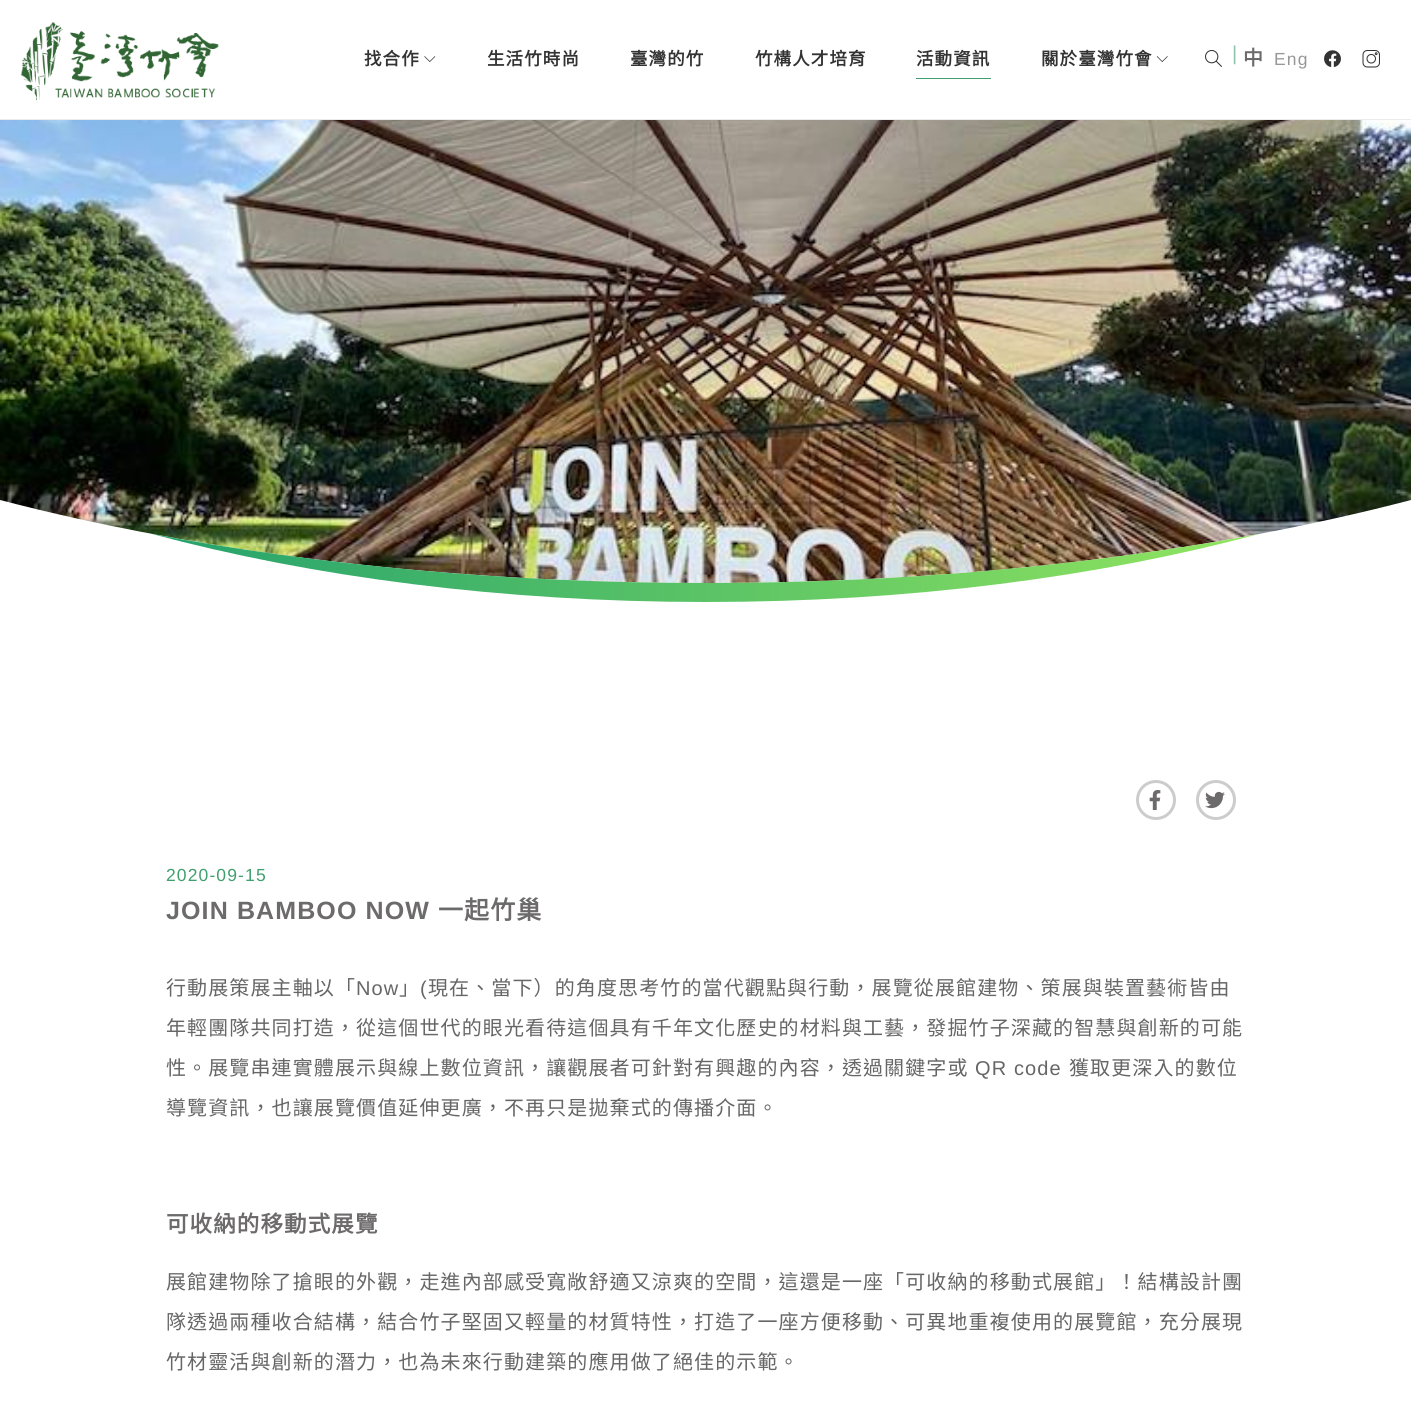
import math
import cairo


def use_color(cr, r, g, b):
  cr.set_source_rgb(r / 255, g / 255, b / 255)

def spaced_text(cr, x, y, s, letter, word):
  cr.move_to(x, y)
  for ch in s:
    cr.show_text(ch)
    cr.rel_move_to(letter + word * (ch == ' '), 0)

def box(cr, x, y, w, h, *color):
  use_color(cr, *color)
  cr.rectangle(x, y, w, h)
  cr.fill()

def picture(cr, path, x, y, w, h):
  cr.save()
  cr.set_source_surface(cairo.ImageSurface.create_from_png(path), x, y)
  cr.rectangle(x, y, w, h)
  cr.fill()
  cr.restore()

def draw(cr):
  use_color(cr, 255, 255, 255)
  cr.paint()
  box(cr, 0, 119, 1411, 1, 235, 235, 235)
  picture(cr, "img_01.png", 20, 22, 199, 79)
  picture(cr, "img_02.png", 424, 56, 12, 6)
  box(cr, 916, 78, 75, 1, 63, 159, 110)
  picture(cr, "img_03.png", 1156, 56, 12, 6)
  picture(cr, "img_04.png", 1205, 50, 17, 17)
  picture(cr, "img_05.png", 1324, 50, 17, 17)
  picture(cr, "img_06.png", 1362, 50, 18, 18)
  picture(cr, "img_07.png", 0, 120, 1411, 463)
  use_color(cr, 255, 255, 255)
  cr.new_path()
  cr.move_to(706, 583)
  cr.curve_to(443, 583, 199, 552, 0, 500)
  cr.line_to(0, 620)
  cr.line_to(1411, 620)
  cr.line_to(1411, 500)
  cr.curve_to(1212, 552, 969, 583, 706, 583)
  cr.close_path()
  cr.fill()
  gradient = cairo.LinearGradient(152, 568, 1259, 568)
  gradient.add_color_stop_rgba(0, 0.141, 0.635, 0.427, 1)
  gradient.add_color_stop_rgba(1, 0.573, 0.898, 0.373, 1)
  cr.set_source(gradient)
  cr.new_path()
  cr.move_to(706, 583)
  cr.curve_to(506, 583, 318, 565, 152, 534)
  cr.curve_to(312, 577, 502, 602, 706, 602)
  cr.curve_to(909, 602, 1099, 577, 1259, 534)
  cr.curve_to(1093, 565, 905, 583, 706, 583)
  cr.close_path()
  cr.fill()
  cr.arc(1156, 800, 18.5, 0, 2 * math.pi)
  use_color(cr, 204, 204, 204)
  cr.set_line_width(3)
  cr.stroke()
  picture(cr, "img_08.png", 1149, 790, 12, 20)
  cr.arc(1216, 800, 18.5, 0, 2 * math.pi)
  cr.stroke()
  picture(cr, "img_09.png", 1205, 791, 20, 18)
  cr.select_font_face("Noto Sans CJK TC", cairo.FONT_SLANT_NORMAL, cairo.FONT_WEIGHT_BOLD)
  cr.set_font_size(17.5)
  use_color(cr, 51, 51, 51)
  spaced_text(cr, 364, 65, "找合作", 1.12, 0)
  spaced_text(cr, 487, 65, "生活竹時尚", 1.12, 0)
  spaced_text(cr, 630, 65, "臺灣的竹", 1.12, 0)
  spaced_text(cr, 755, 65, "竹構人才培育", 1.12, 0)
  spaced_text(cr, 916, 65, "活動資訊", 1.12, 0)
  spaced_text(cr, 1041, 65, "關於臺灣竹會", 1.12, 0)
  cr.select_font_face("Liberation Sans")
  cr.set_font_size(20)
  use_color(cr, 140, 197, 168)
  spaced_text(cr, 1232, 60, "|", 1.12, 0)
  cr.select_font_face("Noto Sans CJK TC", cairo.FONT_SLANT_NORMAL, cairo.FONT_WEIGHT_BOLD)
  use_color(cr, 108, 106, 106)
  spaced_text(cr, 1243, 65, "中", 1.12, 0)
  cr.select_font_face("Liberation Sans")
  cr.set_font_size(17.5)
  use_color(cr, 152, 151, 151)
  spaced_text(cr, 1274, 65, "Eng", 1.12, 0)
  use_color(cr, 63, 159, 110)
  spaced_text(cr, 166, 881, "2020-09-15", 1.12, 0)
  cr.select_font_face("Liberation Sans", cairo.FONT_SLANT_NORMAL, cairo.FONT_WEIGHT_BOLD)
  cr.set_font_size(25)
  use_color(cr, 108, 106, 106)
  spaced_text(cr, 166, 919, "JOIN BAMBOO NOW", 1.12, 0)
  cr.select_font_face("Noto Sans CJK TC", cairo.FONT_SLANT_NORMAL, cairo.FONT_WEIGHT_BOLD)
  spaced_text(cr, 438, 919, "一起竹巢", 1.12, 0)
  cr.select_font_face("Noto Sans CJK TC")
  cr.set_font_size(20)
  use_color(cr, 102, 102, 102)
  spaced_text(cr, 166, 995, "行動展策展主軸以「", 1.12, 0)
  cr.select_font_face("Liberation Sans")
  spaced_text(cr, 356, 995, "Now", 1.12, 0)
  cr.select_font_face("Noto Sans CJK TC")
  spaced_text(cr, 399, 995, "」", 1.12, 0)
  cr.select_font_face("Liberation Sans")
  spaced_text(cr, 420, 995, "(", 1.12, 0)
  cr.select_font_face("Noto Sans CJK TC")
  spaced_text(cr, 428, 995, "現在、當下）的角度思考竹的當代觀點與行動，展覽從展館建物、策展與裝置藝術皆由", 1.12, 0)
  spaced_text(cr, 166, 1035, "年輕團隊共同打造，從這個世代的眼光看待這個具有千年文化歷史的材料與工藝，發掘竹子深藏的智慧與創新的可能", 1.12, 0)
  spaced_text(cr, 166, 1075, "性。展覽串連實體展示與線上數位資訊，讓觀展者可針對有興趣的內容，透過關鍵字或", 1.12, 0)
  cr.select_font_face("Liberation Sans")
  spaced_text(cr, 975, 1075, "QR code", 1.12, 0)
  cr.select_font_face("Noto Sans CJK TC")
  spaced_text(cr, 1069, 1075, "獲取更深入的數位", 1.12, 0)
  spaced_text(cr, 166, 1115, "導覽資訊，也讓展覽價值延伸更廣，不再只是拋棄式的傳播介面。", 1.12, 0)
  cr.select_font_face("Noto Sans CJK TC", cairo.FONT_SLANT_NORMAL, cairo.FONT_WEIGHT_BOLD)
  cr.set_font_size(22.5)
  use_color(cr, 108, 106, 106)
  spaced_text(cr, 166, 1232, "可收納的移動式展覽", 1.12, 0)
  cr.select_font_face("Noto Sans CJK TC")
  cr.set_font_size(20)
  use_color(cr, 102, 102, 102)
  spaced_text(cr, 166, 1289, "展館建物除了搶眼的外觀，走進內部感受寬敞舒適又涼爽的空間，這還是一座「可收納的移動式展館」！結構設計團", 1.12, 0)
  spaced_text(cr, 166, 1329, "隊透過兩種收合結構，結合竹子堅固又輕量的材質特性，打造了一座方便移動、可異地重複使用的展覽館，充分展現", 1.12, 0)
  spaced_text(cr, 166, 1369, "竹材靈活與創新的潛力，也為未來行動建築的應用做了絕佳的示範。", 1.12, 0)


surface = cairo.ImageSurface(cairo.FORMAT_RGB24, 1411, 1405)
cr = cairo.Context(surface)
options = cairo.FontOptions()
options.set_hint_metrics(cairo.HINT_METRICS_OFF)
options.set_hint_style(cairo.HINT_STYLE_NONE)
cr.set_font_options(options)
cr.set_miter_limit(4)
draw(cr)
surface.write_to_png("out.png")
